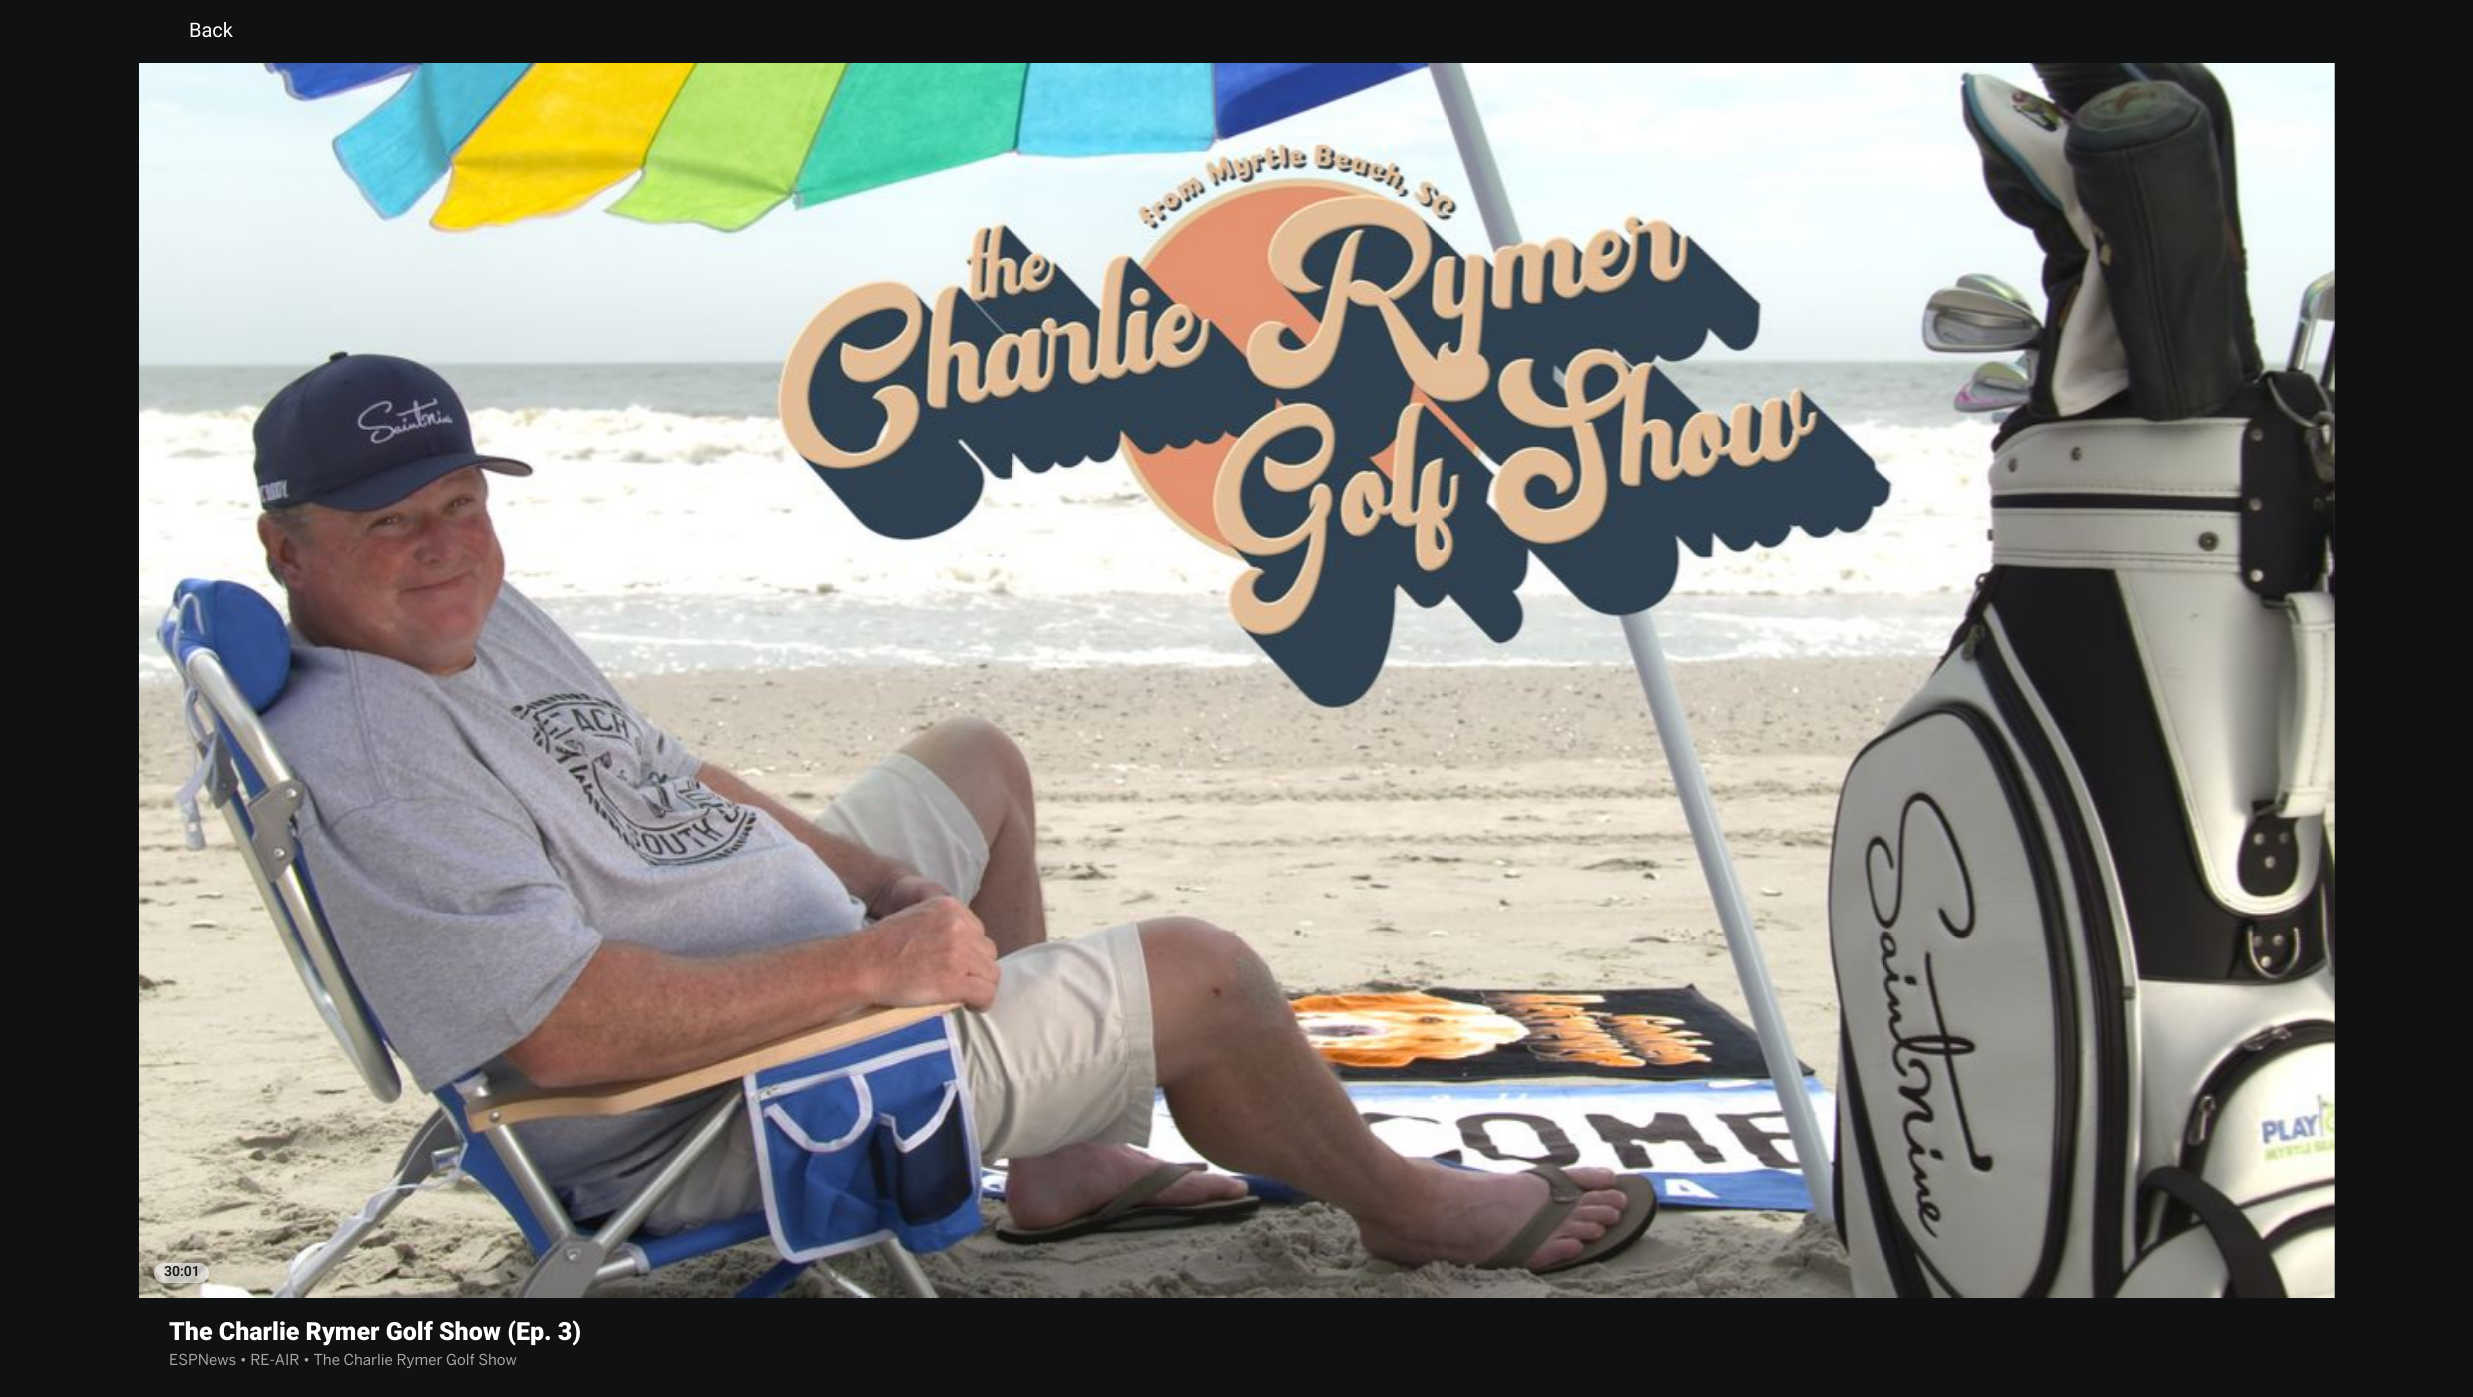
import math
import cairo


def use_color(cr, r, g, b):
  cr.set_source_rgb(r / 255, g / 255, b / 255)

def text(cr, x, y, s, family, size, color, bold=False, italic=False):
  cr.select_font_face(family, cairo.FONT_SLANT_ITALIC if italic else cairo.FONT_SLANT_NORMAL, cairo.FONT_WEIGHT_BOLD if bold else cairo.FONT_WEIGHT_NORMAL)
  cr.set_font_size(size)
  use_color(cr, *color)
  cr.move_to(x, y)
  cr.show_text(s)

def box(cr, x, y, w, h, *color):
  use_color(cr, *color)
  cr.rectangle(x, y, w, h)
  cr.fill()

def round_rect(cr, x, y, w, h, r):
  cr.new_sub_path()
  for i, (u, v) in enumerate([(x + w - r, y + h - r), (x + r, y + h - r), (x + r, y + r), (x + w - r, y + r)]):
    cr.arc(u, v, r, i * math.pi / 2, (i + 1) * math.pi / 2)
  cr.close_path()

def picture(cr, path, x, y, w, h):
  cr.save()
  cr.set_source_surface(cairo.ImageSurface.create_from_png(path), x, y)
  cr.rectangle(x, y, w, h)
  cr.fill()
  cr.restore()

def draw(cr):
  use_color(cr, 16, 17, 19)
  cr.paint()
  box(cr, 2334, 63, 1, 1235, 43, 44, 45)
  picture(cr, "img_01.png", 139, 63, 2196, 1235)
  cr.set_source_rgba(1, 1, 1, 0.6)
  round_rect(cr, 154, 1263, 55, 20, 10)
  cr.fill()
  text(cr, 189, 37, "Back", "Roboto", 20, (255, 255, 255))
  text(cr, 164, 1276, "30:01", "Roboto SemiBold", 14, (21, 22, 23))
  text(cr, 169, 1340, "The Charlie Rymer Golf Show (Ep. 3)", "Roboto Black", 25, (255, 255, 255))
  text(cr, 169, 1365, "ESPNews • RE-AIR • The Charlie Rymer Golf Show", "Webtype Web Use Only", 15, (165, 166, 167))


surface = cairo.ImageSurface(cairo.FORMAT_RGB24, 2473, 1397)
cr = cairo.Context(surface)
options = cairo.FontOptions()
options.set_hint_metrics(cairo.HINT_METRICS_OFF)
options.set_hint_style(cairo.HINT_STYLE_NONE)
cr.set_font_options(options)
cr.set_miter_limit(4)
draw(cr)
surface.write_to_png("out.png")
